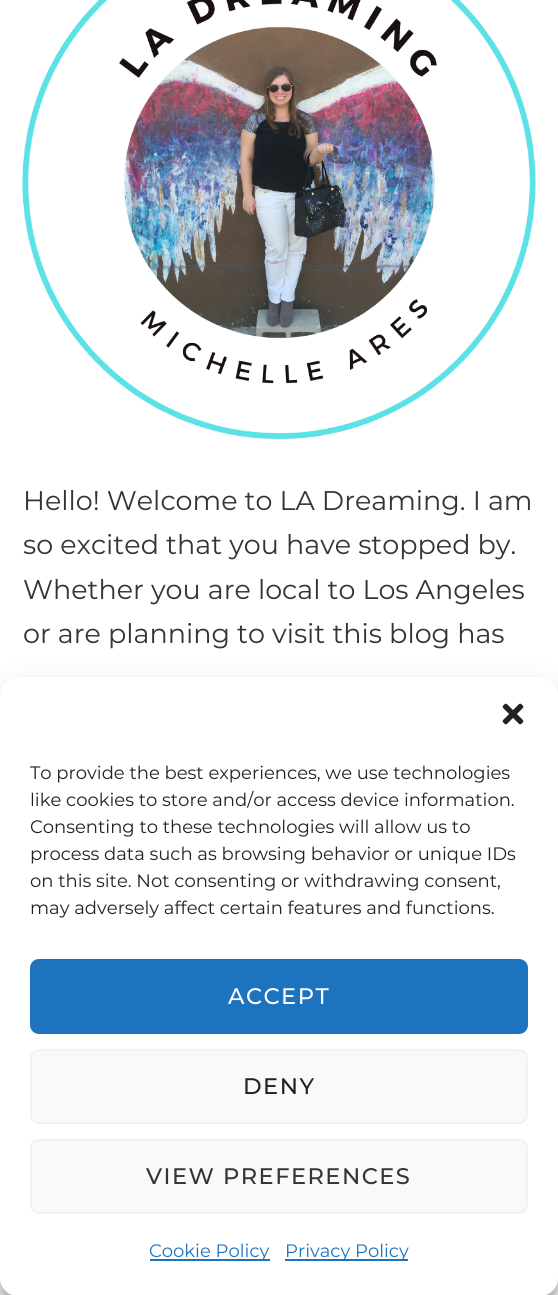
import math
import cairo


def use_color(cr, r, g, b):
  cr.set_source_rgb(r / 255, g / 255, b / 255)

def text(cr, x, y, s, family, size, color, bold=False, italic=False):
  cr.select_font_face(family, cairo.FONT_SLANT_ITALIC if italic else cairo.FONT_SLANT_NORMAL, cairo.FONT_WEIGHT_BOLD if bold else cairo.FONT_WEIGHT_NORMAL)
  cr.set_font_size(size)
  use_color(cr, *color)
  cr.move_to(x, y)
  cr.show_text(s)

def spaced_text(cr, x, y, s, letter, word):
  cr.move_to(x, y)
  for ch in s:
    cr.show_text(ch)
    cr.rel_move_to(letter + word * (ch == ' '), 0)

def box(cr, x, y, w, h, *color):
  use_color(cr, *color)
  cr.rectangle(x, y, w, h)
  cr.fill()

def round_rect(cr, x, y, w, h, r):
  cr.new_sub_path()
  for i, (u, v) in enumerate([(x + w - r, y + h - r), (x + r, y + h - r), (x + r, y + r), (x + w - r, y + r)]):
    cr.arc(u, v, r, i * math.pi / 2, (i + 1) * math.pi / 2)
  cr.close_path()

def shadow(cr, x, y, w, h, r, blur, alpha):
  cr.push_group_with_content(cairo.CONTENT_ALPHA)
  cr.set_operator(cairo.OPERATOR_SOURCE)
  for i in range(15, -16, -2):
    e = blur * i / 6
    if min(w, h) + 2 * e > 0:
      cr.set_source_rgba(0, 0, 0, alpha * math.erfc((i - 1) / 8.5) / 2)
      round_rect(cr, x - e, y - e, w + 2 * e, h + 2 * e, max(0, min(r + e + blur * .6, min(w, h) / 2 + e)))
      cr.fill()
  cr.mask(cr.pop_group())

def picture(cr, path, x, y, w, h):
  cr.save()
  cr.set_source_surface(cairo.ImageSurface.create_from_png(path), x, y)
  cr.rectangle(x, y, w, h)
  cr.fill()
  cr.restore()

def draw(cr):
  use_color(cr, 255, 255, 255)
  cr.paint()
  picture(cr, "img_01.png", 22, 0, 514, 439)
  use_color(cr, 0, 0, 0)
  shadow(cr, 0, 686, 558, 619, 18, 4.5, 0.23)
  shadow(cr, 0, 692, 558, 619, 18, 15, 0.19)
  use_color(cr, 255, 255, 255)
  round_rect(cr, 0, 677, 558, 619, 18)
  cr.fill()
  picture(cr, "img_02.png", 502, 703, 22, 22)
  use_color(cr, 30, 115, 190)
  round_rect(cr, 31, 960, 496, 73, 8)
  cr.fill_preserve()
  cr.stroke()
  use_color(cr, 249, 249, 249)
  round_rect(cr, 31, 1050, 496, 73, 8)
  cr.fill_preserve()
  use_color(cr, 242, 242, 242)
  cr.stroke()
  use_color(cr, 249, 249, 249)
  round_rect(cr, 31, 1140, 496, 73, 8)
  cr.fill_preserve()
  use_color(cr, 242, 242, 242)
  cr.stroke()
  box(cr, 150, 1259, 120, 2, 30, 115, 190)
  box(cr, 285, 1259, 123, 2, 30, 115, 190)
  text(cr, 23, 510, "Hello! Welcome to LA Dreaming. I am", "Montserrat", 27, (52, 52, 52))
  text(cr, 23, 554, "so excited that you have stopped by.", "Montserrat", 27, (52, 52, 52))
  text(cr, 23, 599, "Whether you are local to Los Angeles", "Montserrat", 27, (52, 52, 52))
  text(cr, 23, 643, "or are planning to visit this blog has", "Montserrat", 27, (52, 52, 52))
  text(cr, 30, 779, "To provide the best experiences, we use technologies", "Montserrat", 18, (34, 34, 34))
  text(cr, 30, 806, "like cookies to store and/or access device information.", "Montserrat", 18, (34, 34, 34))
  text(cr, 30, 833, "Consenting to these technologies will allow us to", "Montserrat", 18, (34, 34, 34))
  text(cr, 30, 860, "process data such as browsing behavior or unique IDs", "Montserrat", 18, (34, 34, 34))
  text(cr, 30, 887, "on this site. Not consenting or withdrawing consent,", "Montserrat", 18, (34, 34, 34))
  text(cr, 30, 914, "may adversely affect certain features and functions.", "Montserrat", 18, (34, 34, 34))
  cr.select_font_face("Montserrat Medium")
  cr.set_font_size(22.5)
  use_color(cr, 255, 255, 255)
  spaced_text(cr, 228, 1004, "ACCEPT", 1.5, 0)
  use_color(cr, 34, 34, 34)
  spaced_text(cr, 243, 1094, "DENY", 1.5, 0)
  use_color(cr, 52, 52, 52)
  spaced_text(cr, 146, 1184, "VIEW PREFERENCES", 1.5, 0)
  text(cr, 149, 1257, "Cookie Policy", "Montserrat", 18, (30, 115, 190))
  text(cr, 285, 1257, "Privacy Policy", "Montserrat", 18, (30, 115, 190))


surface = cairo.ImageSurface(cairo.FORMAT_RGB24, 558, 1295)
cr = cairo.Context(surface)
options = cairo.FontOptions()
options.set_hint_metrics(cairo.HINT_METRICS_OFF)
options.set_hint_style(cairo.HINT_STYLE_NONE)
cr.set_font_options(options)
cr.set_miter_limit(4)
draw(cr)
surface.write_to_png("out.png")
